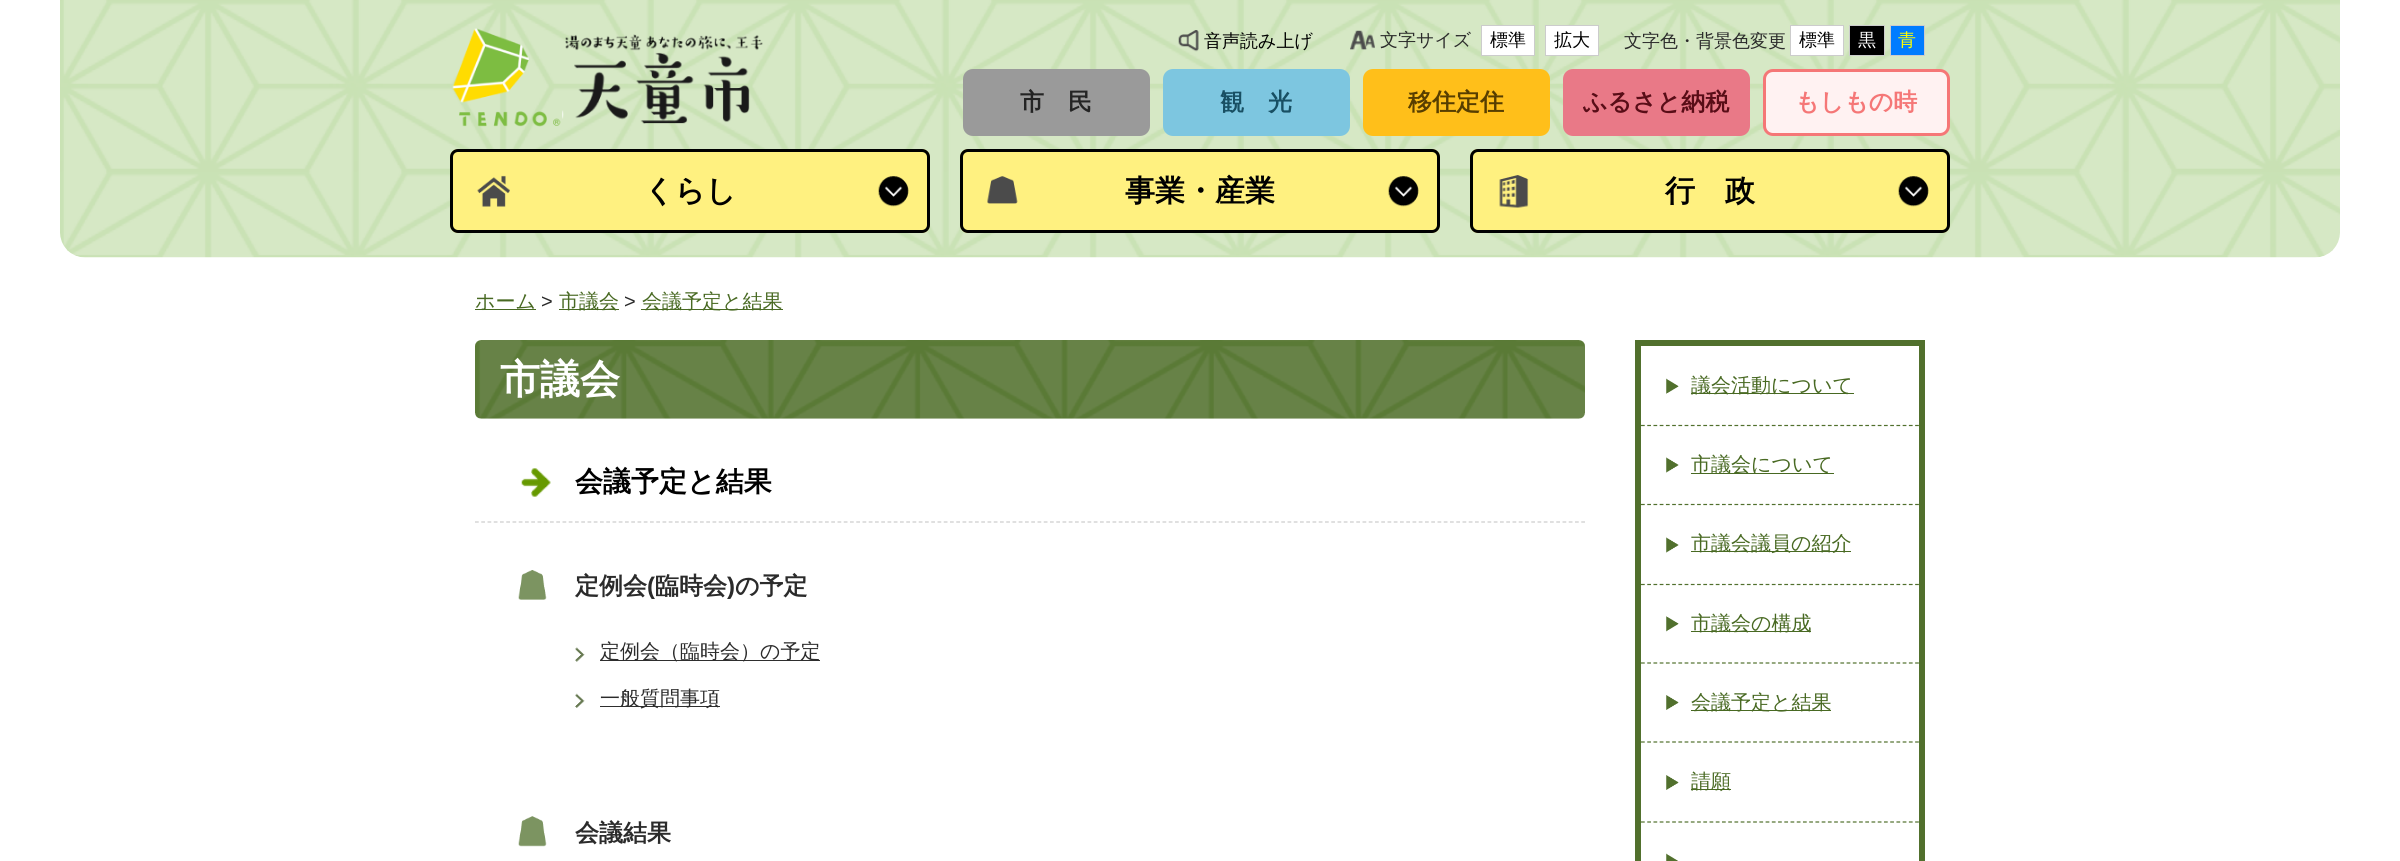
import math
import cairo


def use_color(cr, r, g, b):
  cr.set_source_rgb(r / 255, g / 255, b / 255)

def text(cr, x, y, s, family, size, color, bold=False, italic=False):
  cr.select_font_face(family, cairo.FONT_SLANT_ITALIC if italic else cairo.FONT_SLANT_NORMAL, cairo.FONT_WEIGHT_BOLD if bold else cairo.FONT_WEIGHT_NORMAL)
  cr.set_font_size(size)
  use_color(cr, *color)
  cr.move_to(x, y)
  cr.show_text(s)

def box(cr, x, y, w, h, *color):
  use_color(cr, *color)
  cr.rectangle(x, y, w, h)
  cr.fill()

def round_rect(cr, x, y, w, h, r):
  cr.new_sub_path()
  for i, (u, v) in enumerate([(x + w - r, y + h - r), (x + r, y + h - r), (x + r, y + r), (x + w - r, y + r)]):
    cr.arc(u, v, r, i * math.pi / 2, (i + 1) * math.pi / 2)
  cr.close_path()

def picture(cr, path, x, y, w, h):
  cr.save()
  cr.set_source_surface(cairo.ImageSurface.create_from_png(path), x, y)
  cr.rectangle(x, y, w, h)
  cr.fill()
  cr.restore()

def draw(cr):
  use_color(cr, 255, 255, 255)
  cr.paint()
  picture(cr, "img_01.png", 60, 0, 2280, 258)
  picture(cr, "img_02.png", 452, 28, 311, 99)
  picture(cr, "img_03.png", 1178, 30, 21, 22)
  picture(cr, "img_04.png", 1350, 30, 25, 20)
  use_color(cr, 255, 255, 255)
  cr.rectangle(1481.5, 25.5, 53, 30)
  cr.fill_preserve()
  use_color(cr, 204, 204, 204)
  cr.set_line_width(1)
  cr.stroke()
  use_color(cr, 255, 255, 255)
  cr.rectangle(1545.5, 25.5, 53, 30)
  cr.fill_preserve()
  use_color(cr, 204, 204, 204)
  cr.stroke()
  use_color(cr, 255, 255, 255)
  cr.rectangle(1790.5, 25.5, 53, 30)
  cr.fill_preserve()
  use_color(cr, 204, 204, 204)
  cr.stroke()
  use_color(cr, 0, 0, 0)
  cr.rectangle(1849.5, 25.5, 35, 30)
  cr.fill_preserve()
  use_color(cr, 204, 204, 204)
  cr.stroke()
  use_color(cr, 0, 124, 255)
  cr.rectangle(1890.5, 25.5, 34, 30)
  cr.fill_preserve()
  use_color(cr, 204, 204, 204)
  cr.stroke()
  use_color(cr, 154, 154, 154)
  round_rect(cr, 964.5, 70.5, 184, 64, 8.5)
  cr.fill_preserve()
  cr.set_line_width(3)
  cr.stroke()
  use_color(cr, 125, 198, 224)
  round_rect(cr, 1164.5, 70.5, 184, 64, 8.5)
  cr.fill_preserve()
  cr.stroke()
  use_color(cr, 255, 191, 26)
  round_rect(cr, 1364.5, 70.5, 184, 64, 8.5)
  cr.fill_preserve()
  cr.stroke()
  use_color(cr, 233, 121, 135)
  round_rect(cr, 1564.5, 70.5, 184, 64, 8.5)
  cr.fill_preserve()
  cr.stroke()
  use_color(cr, 255, 242, 242)
  round_rect(cr, 1764.5, 70.5, 184, 64, 8.5)
  cr.fill_preserve()
  use_color(cr, 245, 119, 119)
  cr.stroke()
  use_color(cr, 255, 241, 128)
  round_rect(cr, 450, 149, 480, 84, 8)
  cr.fill()
  picture(cr, "img_05.png", 477, 175, 432, 32)
  round_rect(cr, 451.5, 150.5, 477, 81, 6.5)
  use_color(cr, 0, 0, 0)
  cr.stroke()
  use_color(cr, 255, 241, 128)
  round_rect(cr, 960, 149, 480, 84, 8)
  cr.fill()
  picture(cr, "img_06.png", 987, 176, 432, 31)
  round_rect(cr, 961.5, 150.5, 477, 81, 6.5)
  use_color(cr, 0, 0, 0)
  cr.stroke()
  use_color(cr, 255, 241, 128)
  round_rect(cr, 1470, 149, 480, 84, 8)
  cr.fill()
  picture(cr, "img_07.png", 1499, 175, 430, 33)
  round_rect(cr, 1471.5, 150.5, 477, 81, 6.5)
  use_color(cr, 0, 0, 0)
  cr.stroke()
  box(cr, 475, 309, 61, 1, 72, 105, 34)
  box(cr, 559, 309, 60, 1, 72, 105, 34)
  box(cr, 641, 309, 142, 1, 72, 105, 34)
  picture(cr, "img_08.png", 475, 340, 1110, 79)
  cr.new_path()
  cr.move_to(475, 522)
  cr.line_to(1585, 522)
  use_color(cr, 204, 204, 204)
  cr.set_line_width(1.2)
  cr.set_dash([3.75, 2.5])
  cr.stroke()
  picture(cr, "img_09.png", 521, 468, 30, 29)
  picture(cr, "img_10.png", 518, 570, 29, 30)
  picture(cr, "img_11.png", 575, 647, 10, 15)
  box(cr, 600, 660, 220, 1, 46, 46, 46)
  picture(cr, "img_12.png", 575, 693, 10, 15)
  box(cr, 600, 706, 120, 1, 46, 46, 46)
  picture(cr, "img_13.png", 518, 816, 29, 31)
  cr.rectangle(1638, 343, 284, 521)
  use_color(cr, 81, 112, 45)
  cr.set_line_width(6)
  cr.set_dash([])
  cr.stroke()
  picture(cr, "img_14.png", 1666, 378, 13, 16)
  cr.new_path()
  cr.move_to(1641, 425.5)
  cr.line_to(1919, 425.5)
  cr.set_line_width(1.2)
  cr.set_dash([3.75, 2.48])
  cr.stroke()
  box(cr, 1691, 393, 163, 1, 72, 105, 34)
  picture(cr, "img_15.png", 1666, 457, 13, 16)
  cr.new_path()
  cr.move_to(1641, 504.5)
  cr.line_to(1919, 504.5)
  use_color(cr, 81, 112, 45)
  cr.stroke()
  box(cr, 1691, 473, 143, 1, 72, 105, 34)
  picture(cr, "img_15.png", 1666, 537, 13, 16)
  cr.new_path()
  cr.move_to(1641, 584.5)
  cr.line_to(1919, 584.5)
  use_color(cr, 81, 112, 45)
  cr.stroke()
  box(cr, 1691, 551, 160, 1, 72, 105, 34)
  picture(cr, "img_16.png", 1666, 616, 13, 16)
  cr.new_path()
  cr.move_to(1641, 663)
  cr.line_to(1919, 663)
  use_color(cr, 81, 112, 45)
  cr.stroke()
  box(cr, 1691, 631, 120, 1, 72, 105, 34)
  picture(cr, "img_17.png", 1666, 695, 13, 15)
  cr.new_path()
  cr.move_to(1641, 742)
  cr.line_to(1919, 742)
  use_color(cr, 81, 112, 45)
  cr.stroke()
  box(cr, 1691, 710, 140, 1, 72, 105, 34)
  picture(cr, "img_17.png", 1666, 775, 13, 15)
  cr.new_path()
  cr.move_to(1641, 822)
  cr.line_to(1919, 822)
  use_color(cr, 81, 112, 45)
  cr.stroke()
  box(cr, 1691, 789, 40, 1, 72, 105, 34)
  picture(cr, "img_18.png", 1666, 853, 12, 8)
  text(cr, 1204, 47, "音声読み上げ", "WenQuanYi Zen Hei Medium", 18, (0, 0, 0))
  text(cr, 1380, 46, "文字サイズ", "WenQuanYi Zen Hei Medium", 18, (43, 43, 43))
  text(cr, 1490, 46, "標準", "WenQuanYi Zen Hei Medium", 18, (0, 0, 0))
  text(cr, 1554, 46, "拡大", "WenQuanYi Zen Hei Medium", 18, (0, 0, 0))
  text(cr, 1624, 47, "文字色・背景色変更", "WenQuanYi Zen Hei Medium", 18, (43, 43, 43))
  text(cr, 1799, 46, "標準", "WenQuanYi Zen Hei Medium", 18, (0, 0, 0))
  text(cr, 1858, 46, "黒", "WenQuanYi Zen Hei Medium", 18, (255, 255, 255))
  text(cr, 1898, 46, "青", "WenQuanYi Zen Hei Medium", 18, (255, 255, 0))
  text(cr, 1020, 110, "市", "WenQuanYi Zen Hei", 24, (36, 36, 36), bold=True)
  text(cr, 1068, 110, "民", "WenQuanYi Zen Hei", 24, (36, 36, 36), bold=True)
  text(cr, 1220, 110, "観", "WenQuanYi Zen Hei", 24, (24, 79, 99), bold=True)
  text(cr, 1268, 110, "光", "WenQuanYi Zen Hei", 24, (24, 79, 99), bold=True)
  text(cr, 1408, 110, "移住定住", "WenQuanYi Zen Hei", 24, (87, 62, 0), bold=True)
  text(cr, 1583, 110, "ふるさと納税", "WenQuanYi Zen Hei", 24, (89, 13, 23), bold=True)
  text(cr, 1795, 110, "もしもの時", "WenQuanYi Zen Hei", 24, (245, 119, 119), bold=True)
  text(cr, 644, 201, "くらし", "WenQuanYi Zen Hei", 30, (0, 0, 0), bold=True)
  text(cr, 1125, 201, "事業・産業", "WenQuanYi Zen Hei", 30, (0, 0, 0), bold=True)
  text(cr, 1665, 201, "行", "WenQuanYi Zen Hei", 30, (0, 0, 0), bold=True)
  text(cr, 1725, 201, "政", "WenQuanYi Zen Hei", 30, (0, 0, 0), bold=True)
  text(cr, 475, 308, "ホーム", "WenQuanYi Zen Hei Medium", 20, (72, 105, 34))
  text(cr, 541, 308, ">", "Liberation Sans", 20, (43, 43, 43))
  text(cr, 559, 308, "市議会", "WenQuanYi Zen Hei Medium", 20, (72, 105, 34))
  text(cr, 624, 308, ">", "Liberation Sans", 20, (43, 43, 43))
  text(cr, 642, 308, "会議予定と結果", "WenQuanYi Zen Hei Medium", 20, (72, 105, 34))
  text(cr, 500, 393, "市議会", "WenQuanYi Zen Hei", 40, (255, 255, 255), bold=True)
  text(cr, 575, 491, "会議予定と結果", "WenQuanYi Zen Hei", 28, (0, 0, 0), bold=True)
  text(cr, 575, 594, "定例会", "WenQuanYi Zen Hei", 24, (43, 43, 43), bold=True)
  text(cr, 647, 594, "(", "Liberation Sans", 24, (43, 43, 43), bold=True)
  text(cr, 655, 594, "臨時会", "WenQuanYi Zen Hei", 24, (43, 43, 43), bold=True)
  text(cr, 727, 594, ")", "Liberation Sans", 24, (43, 43, 43), bold=True)
  text(cr, 735, 594, "の予定", "WenQuanYi Zen Hei", 24, (43, 43, 43), bold=True)
  text(cr, 600, 658, "定例会（臨時会）の予定", "WenQuanYi Zen Hei Medium", 20, (43, 43, 43))
  text(cr, 600, 705, "一般質問事項", "WenQuanYi Zen Hei Medium", 20, (43, 43, 43))
  text(cr, 575, 841, "会議結果", "WenQuanYi Zen Hei", 24, (43, 43, 43), bold=True)
  text(cr, 1691, 392, "議会活動について", "WenQuanYi Zen Hei Medium", 20, (72, 105, 34))
  text(cr, 1691, 471, "市議会について", "WenQuanYi Zen Hei Medium", 20, (72, 105, 34))
  text(cr, 1691, 550, "市議会議員の紹介", "WenQuanYi Zen Hei Medium", 20, (72, 105, 34))
  text(cr, 1691, 630, "市議会の構成", "WenQuanYi Zen Hei Medium", 20, (72, 105, 34))
  text(cr, 1691, 709, "会議予定と結果", "WenQuanYi Zen Hei Medium", 20, (72, 105, 34))
  text(cr, 1691, 788, "請願", "WenQuanYi Zen Hei Medium", 20, (72, 105, 34))


surface = cairo.ImageSurface(cairo.FORMAT_RGB24, 2400, 861)
cr = cairo.Context(surface)
options = cairo.FontOptions()
options.set_hint_metrics(cairo.HINT_METRICS_OFF)
options.set_hint_style(cairo.HINT_STYLE_NONE)
cr.set_font_options(options)
cr.set_miter_limit(4)
draw(cr)
surface.write_to_png("out.png")
